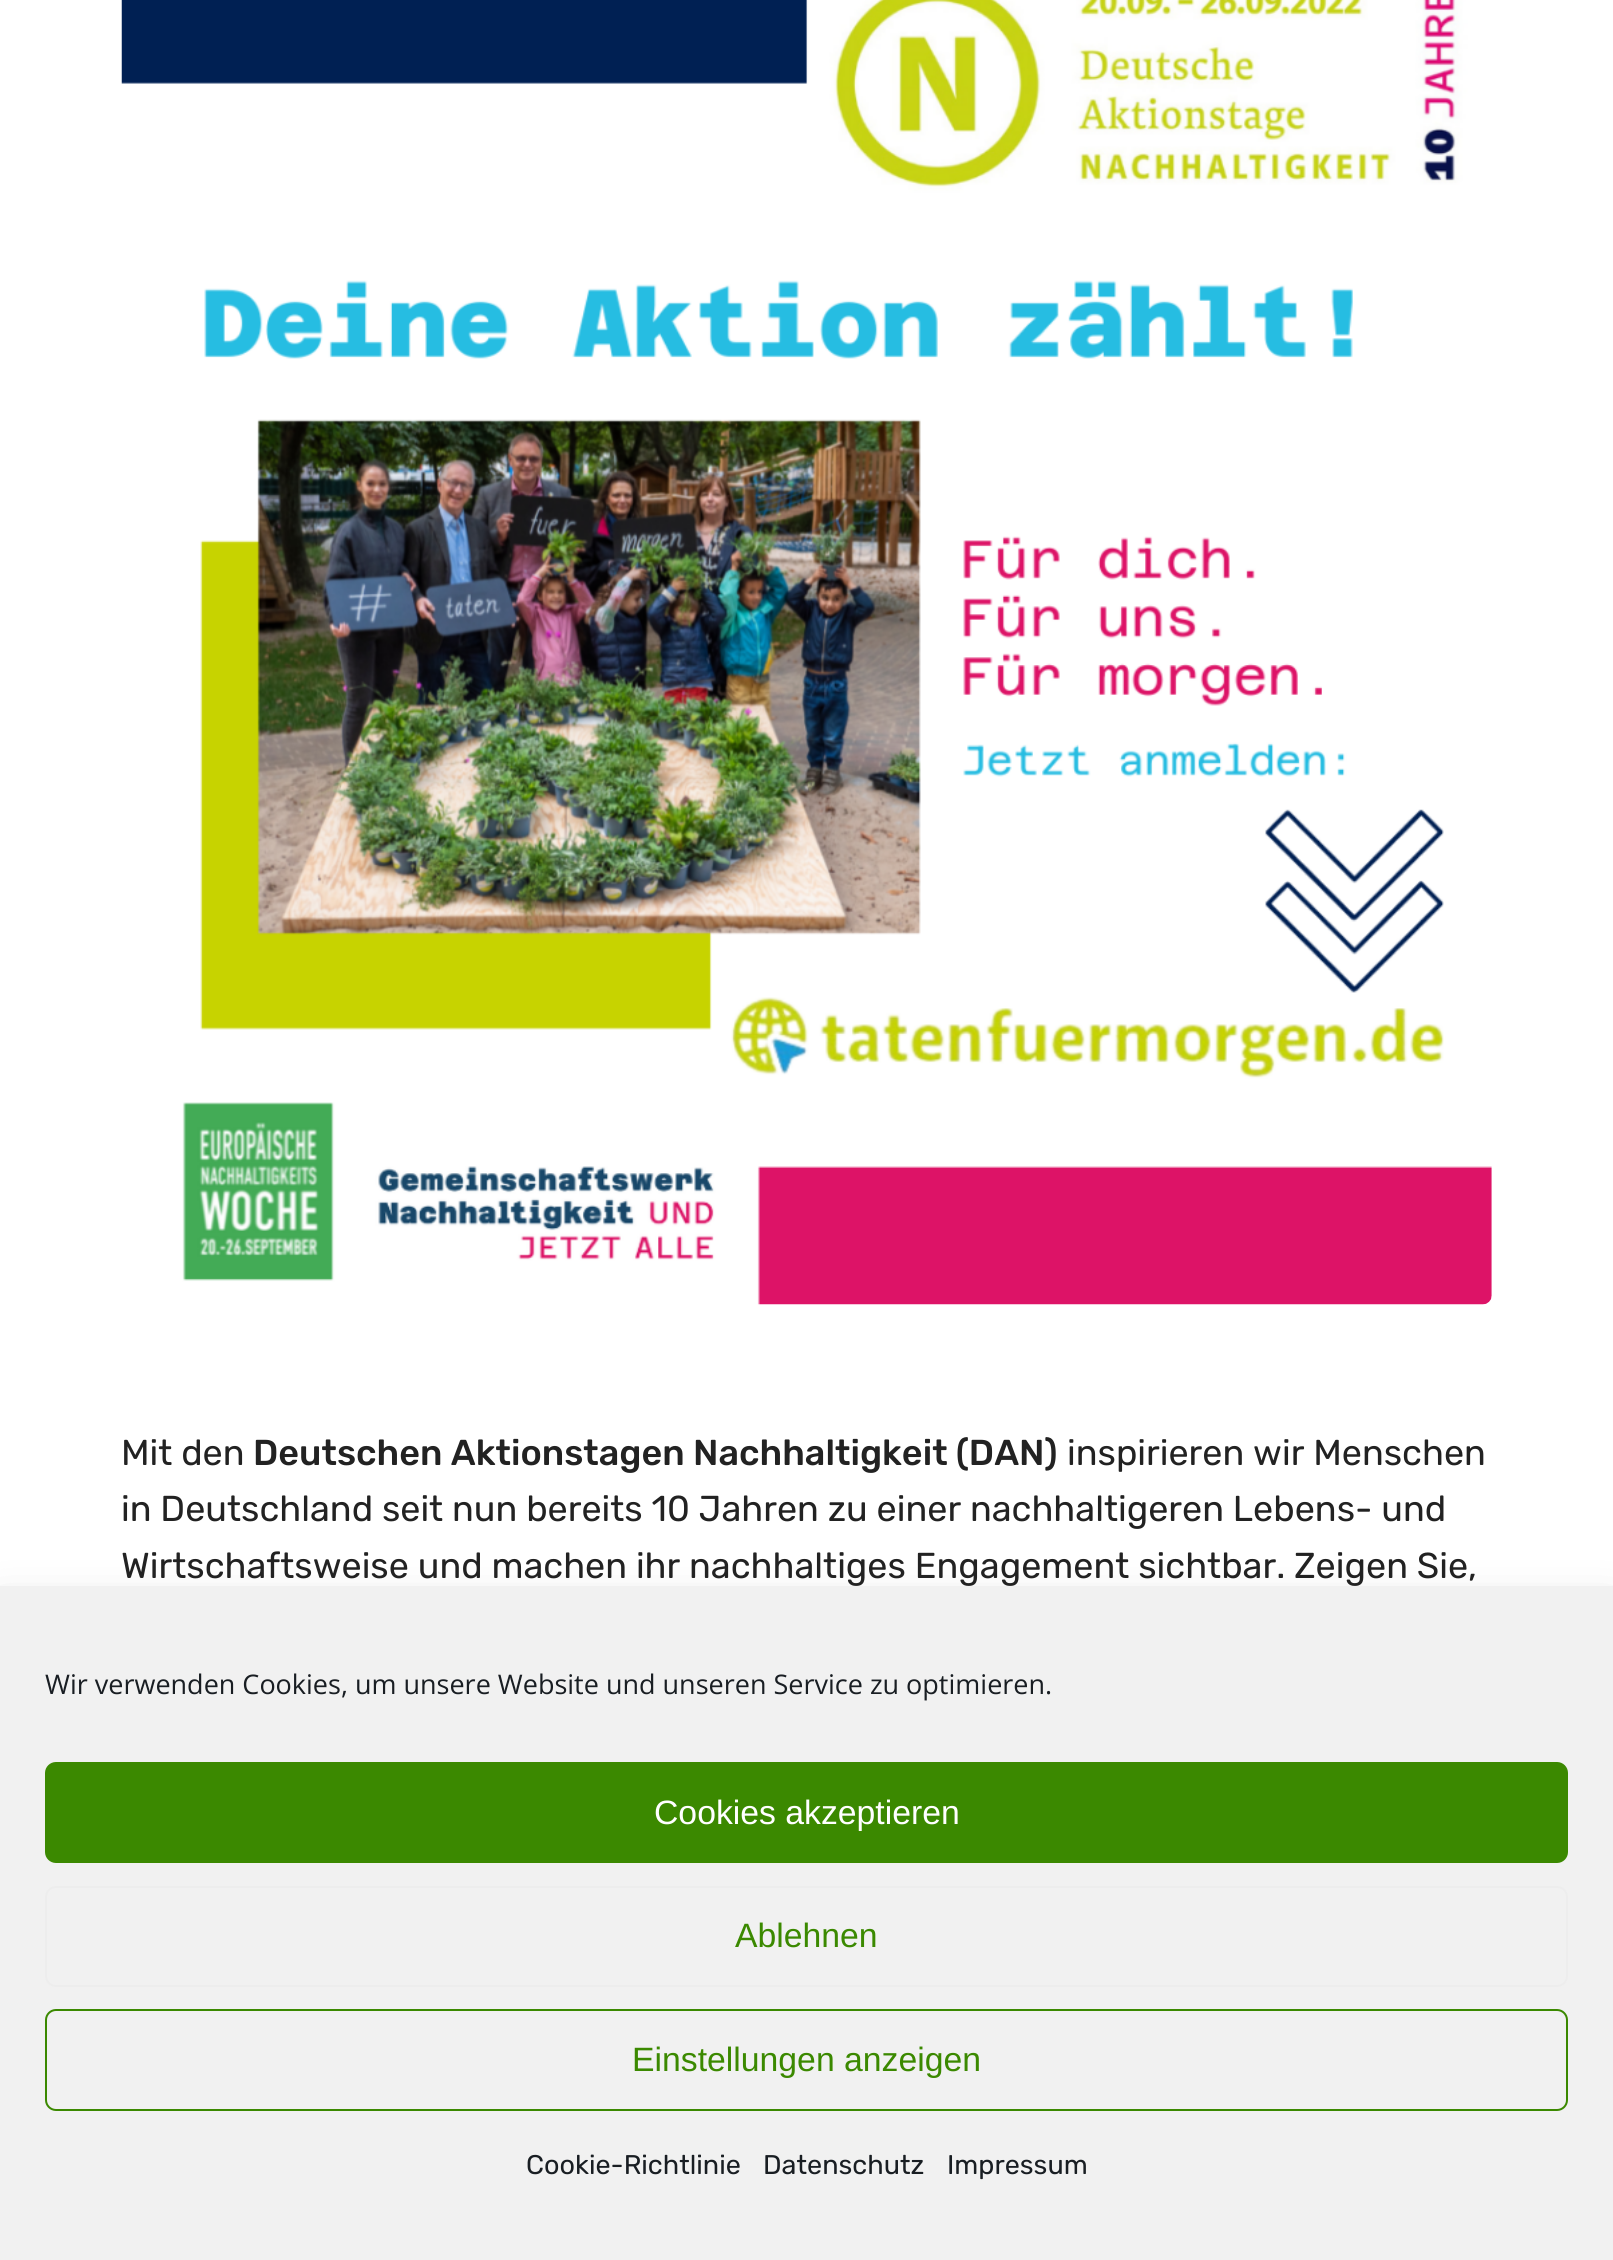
import math
import cairo


def use_color(cr, r, g, b):
  cr.set_source_rgb(r / 255, g / 255, b / 255)

def text(cr, x, y, s, family, size, color, bold=False, italic=False):
  cr.select_font_face(family, cairo.FONT_SLANT_ITALIC if italic else cairo.FONT_SLANT_NORMAL, cairo.FONT_WEIGHT_BOLD if bold else cairo.FONT_WEIGHT_NORMAL)
  cr.set_font_size(size)
  use_color(cr, *color)
  cr.move_to(x, y)
  cr.show_text(s)

def box(cr, x, y, w, h, *color):
  use_color(cr, *color)
  cr.rectangle(x, y, w, h)
  cr.fill()

def round_rect(cr, x, y, w, h, r):
  cr.new_sub_path()
  for i, (u, v) in enumerate([(x + w - r, y + h - r), (x + r, y + h - r), (x + r, y + r), (x + w - r, y + r)]):
    cr.arc(u, v, r, i * math.pi / 2, (i + 1) * math.pi / 2)
  cr.close_path()

def shadow(cr, x, y, w, h, r, blur, alpha):
  cr.push_group_with_content(cairo.CONTENT_ALPHA)
  cr.set_operator(cairo.OPERATOR_SOURCE)
  for i in range(15, -16, -2):
    e = blur * i / 6
    if min(w, h) + 2 * e > 0:
      cr.set_source_rgba(0, 0, 0, alpha * math.erfc((i - 1) / 8.5) / 2)
      round_rect(cr, x - e, y - e, w + 2 * e, h + 2 * e, max(0, min(r + e + blur * .6, min(w, h) / 2 + e)))
      cr.fill()
  cr.mask(cr.pop_group())

def picture(cr, path, x, y, w, h):
  cr.save()
  cr.set_source_surface(cairo.ImageSurface.create_from_png(path), x, y)
  cr.rectangle(x, y, w, h)
  cr.fill()
  cr.restore()

def draw(cr):
  use_color(cr, 255, 255, 255)
  cr.paint()
  picture(cr, "img_01.png", 121, 0, 1371, 1305)
  use_color(cr, 0, 0, 0)
  shadow(cr, 0, 1609, 1613, 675, 0, 22.5, 0.19)
  box(cr, 0, 1586, 1613, 674, 241, 241, 241)
  use_color(cr, 59, 137, 0)
  round_rect(cr, 46, 1763, 1521, 99, 10)
  cr.fill_preserve()
  cr.stroke()
  round_rect(cr, 46, 1887, 1521, 99, 10)
  use_color(cr, 237, 237, 237)
  cr.stroke()
  round_rect(cr, 46, 2010, 1521, 100, 10)
  use_color(cr, 59, 137, 0)
  cr.stroke()
  text(cr, 121, 1465, "Mit den", "Rubik Light", 36, (34, 34, 34))
  text(cr, 253, 1465, "Deutschen Aktionstagen Nachhaltigkeit (DAN)", "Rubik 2 Light", 36, (34, 34, 34))
  text(cr, 1067, 1465, "inspirieren wir Menschen", "Rubik Light", 36, (34, 34, 34))
  text(cr, 121, 1521, "in Deutschland seit nun bereits 10 Jahren zu einer nachhaltigeren Lebens- und", "Rubik Light", 36, (34, 34, 34))
  text(cr, 121, 1578, "Wirtschaftsweise und machen ihr nachhaltiges Engagement sichtbar. Zeigen Sie,", "Rubik Light", 36, (34, 34, 34))
  text(cr, 45, 1694, "Wir verwenden Cookies, um unsere Website und unseren Service zu optimieren.", "Open Sans", 27, (25, 30, 35))
  text(cr, 654, 1824, "Cookies akzeptieren", "Liberation Sans", 33.75, (255, 255, 255))
  text(cr, 735, 1947, "Ablehnen", "Liberation Sans", 33.75, (59, 137, 0))
  text(cr, 632, 2071, "Einstellungen anzeigen", "Liberation Sans", 33.75, (59, 137, 0))
  text(cr, 526, 2174, "Cookie-Richtlinie", "Rubik Light", 27, (25, 30, 35))
  text(cr, 763, 2174, "Datenschutz", "Rubik Light", 27, (25, 30, 35))
  text(cr, 947, 2174, "Impressum", "Rubik Light", 27, (25, 30, 35))


surface = cairo.ImageSurface(cairo.FORMAT_RGB24, 1613, 2260)
cr = cairo.Context(surface)
options = cairo.FontOptions()
options.set_hint_metrics(cairo.HINT_METRICS_OFF)
options.set_hint_style(cairo.HINT_STYLE_NONE)
cr.set_font_options(options)
cr.set_miter_limit(4)
draw(cr)
surface.write_to_png("out.png")
